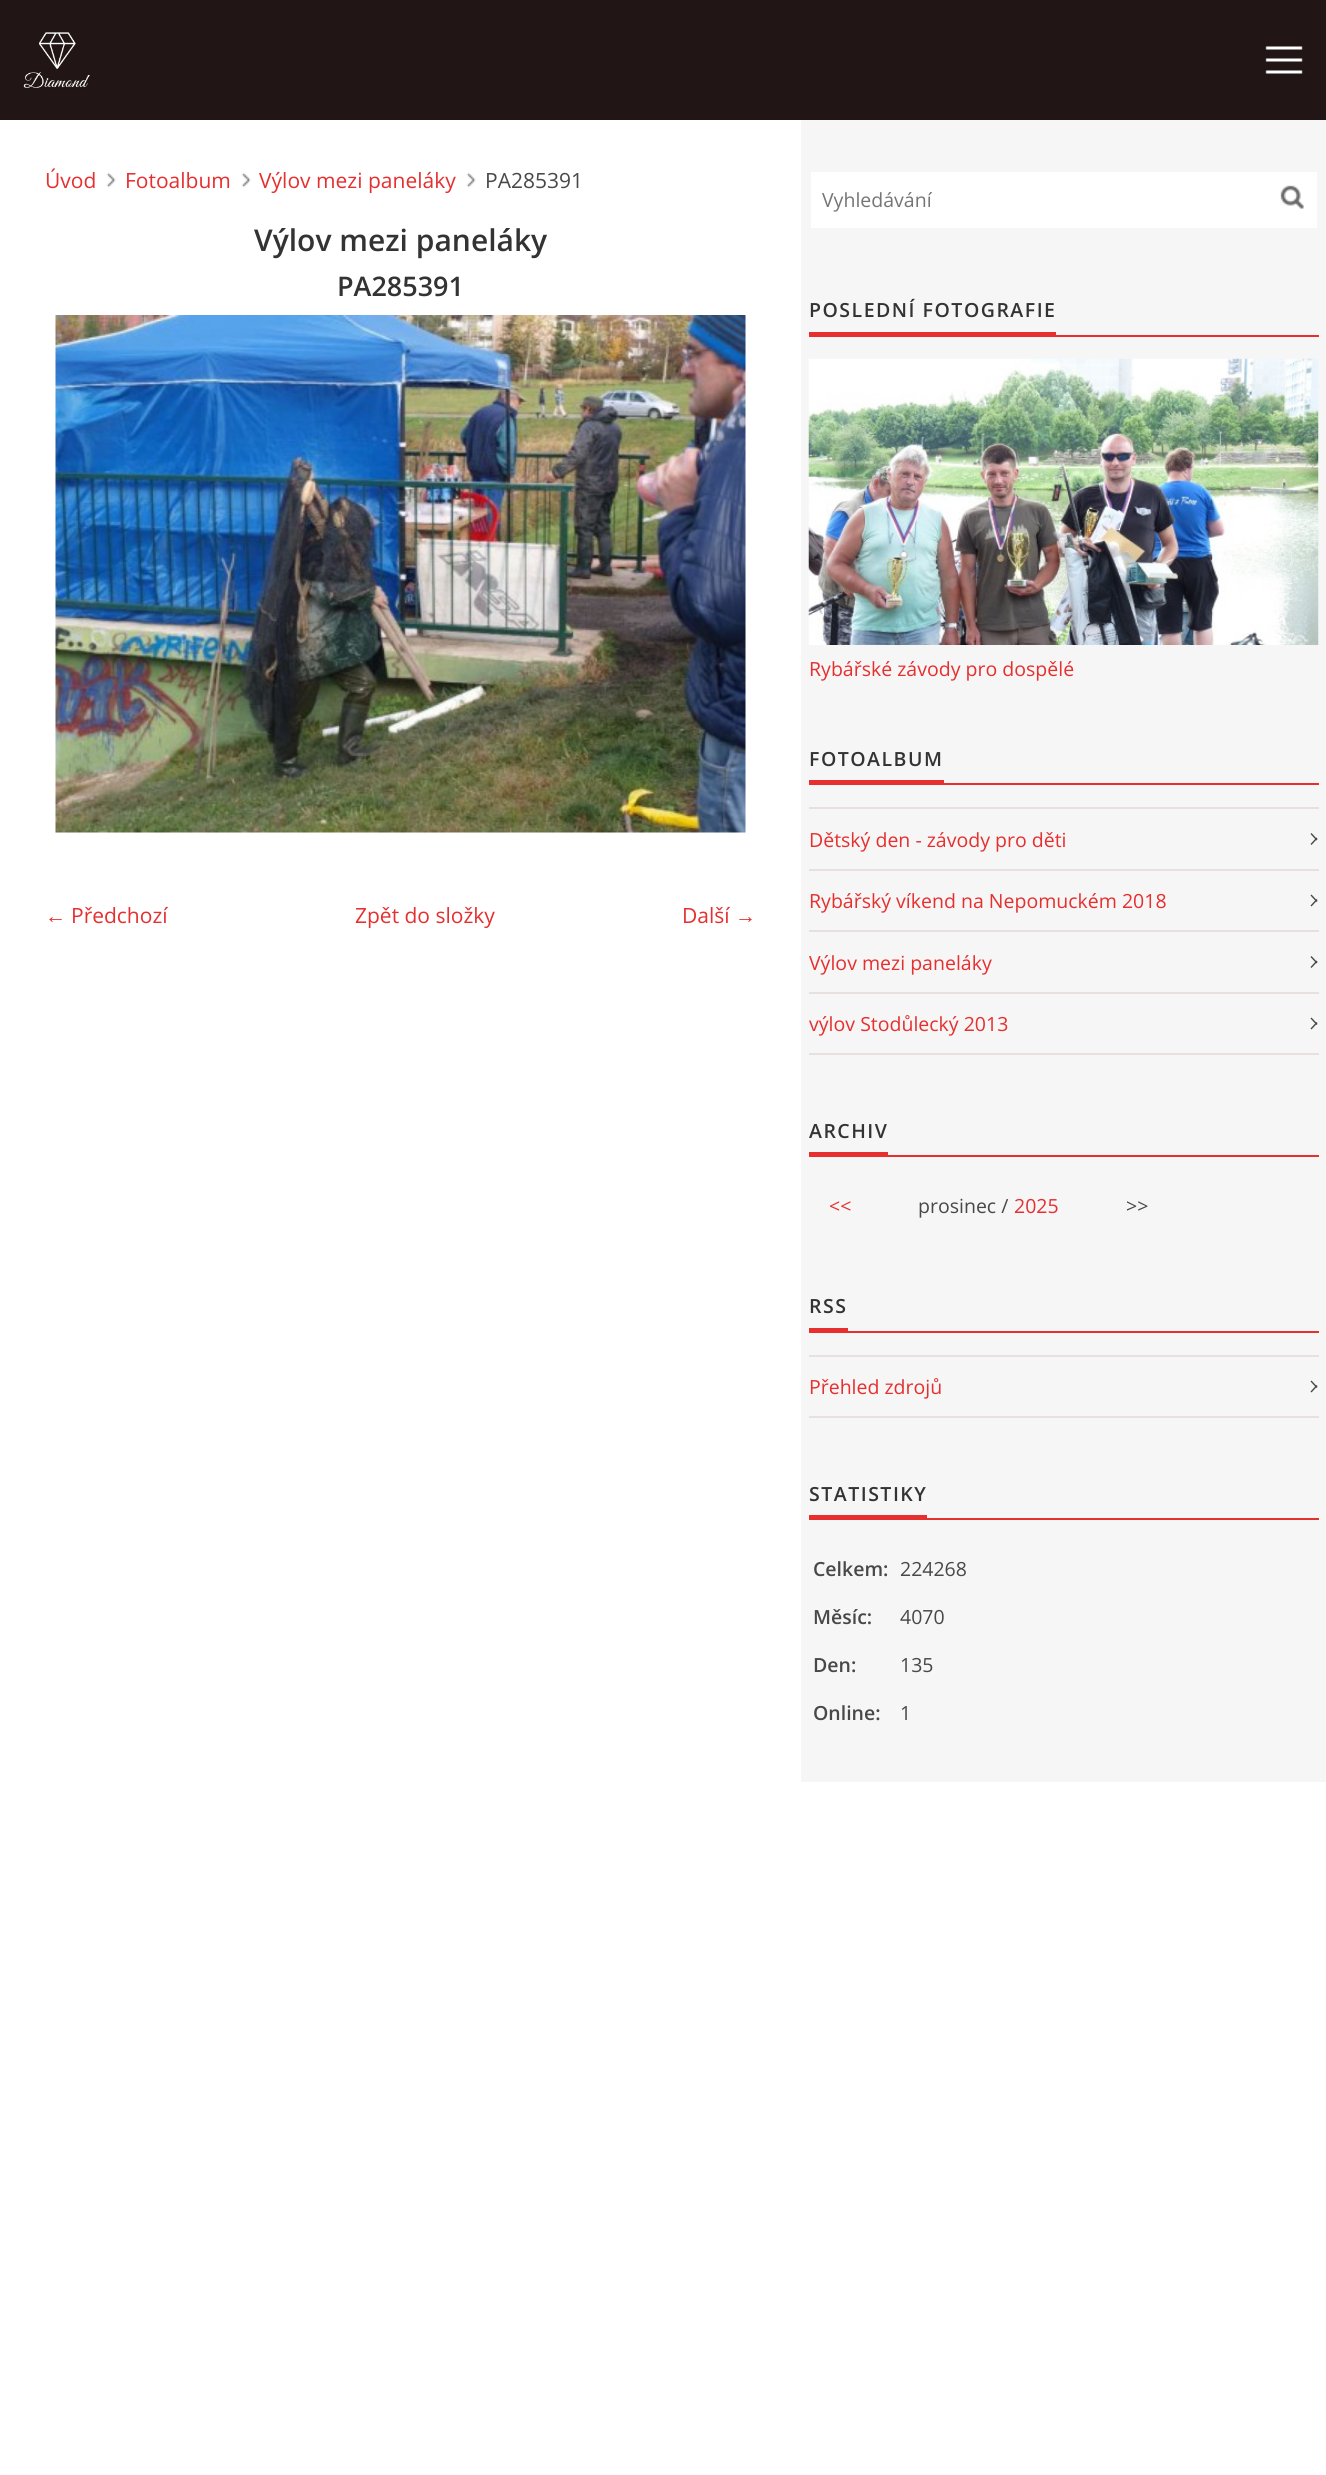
import math
import cairo


def use_color(cr, r, g, b):
  cr.set_source_rgb(r / 255, g / 255, b / 255)

def text(cr, x, y, s, family, size, color, bold=False, italic=False):
  cr.select_font_face(family, cairo.FONT_SLANT_ITALIC if italic else cairo.FONT_SLANT_NORMAL, cairo.FONT_WEIGHT_BOLD if bold else cairo.FONT_WEIGHT_NORMAL)
  cr.set_font_size(size)
  use_color(cr, *color)
  cr.move_to(x, y)
  cr.show_text(s)

def spaced_text(cr, x, y, s, letter, word):
  cr.move_to(x, y)
  for ch in s:
    cr.show_text(ch)
    cr.rel_move_to(letter + word * (ch == ' '), 0)

def box(cr, x, y, w, h, *color):
  use_color(cr, *color)
  cr.rectangle(x, y, w, h)
  cr.fill()

def picture(cr, path, x, y, w, h):
  cr.save()
  cr.set_source_surface(cairo.ImageSurface.create_from_png(path), x, y)
  cr.rectangle(x, y, w, h)
  cr.fill()
  cr.restore()

def draw(cr):
  use_color(cr, 255, 255, 255)
  cr.paint()
  box(cr, 0, 0, 1326, 120, 33, 21, 21)
  picture(cr, "img_01.png", 23, 32, 67, 56)
  picture(cr, "img_02.png", 1265, 46, 38, 28)
  picture(cr, "img_03.png", 106, 172, 10, 16)
  picture(cr, "img_03.png", 241, 172, 10, 16)
  picture(cr, "img_03.png", 466, 172, 10, 16)
  picture(cr, "img_04.png", 55, 315, 691, 518)
  box(cr, 801, 120, 525, 1662, 246, 246, 246)
  box(cr, 811, 172, 506, 56, 255, 255, 255)
  picture(cr, "img_05.png", 1280, 185, 24, 24)
  box(cr, 809, 332, 247, 3, 230, 47, 47)
  box(cr, 809, 335, 510, 2, 230, 47, 47)
  picture(cr, "img_06.png", 808, 358, 511, 287)
  box(cr, 809, 780, 135, 3, 230, 47, 47)
  box(cr, 809, 783, 510, 2, 230, 47, 47)
  box(cr, 809, 807, 510, 2, 232, 223, 223)
  box(cr, 809, 869, 510, 2, 232, 223, 223)
  use_color(cr, 72, 72, 72)
  cr.new_path()
  cr.move_to(1311.5, 833)
  cr.line_to(1317.5, 839.5)
  cr.line_to(1316.5, 840.5)
  cr.line_to(1310.5, 834)
  cr.close_path()
  cr.fill()
  cr.new_path()
  cr.move_to(1310.5, 844)
  cr.line_to(1316.5, 837.5)
  cr.line_to(1317.5, 838.5)
  cr.line_to(1311.5, 845)
  cr.close_path()
  cr.fill()
  box(cr, 809, 930, 510, 2, 232, 223, 223)
  use_color(cr, 72, 72, 72)
  cr.new_path()
  cr.move_to(1311.5, 894.5)
  cr.line_to(1317.5, 901)
  cr.line_to(1316.5, 902)
  cr.line_to(1310.5, 895.5)
  cr.close_path()
  cr.fill()
  cr.new_path()
  cr.move_to(1310.5, 905.5)
  cr.line_to(1316.5, 899)
  cr.line_to(1317.5, 900)
  cr.line_to(1311.5, 906.5)
  cr.close_path()
  cr.fill()
  box(cr, 809, 992, 510, 2, 232, 223, 223)
  use_color(cr, 72, 72, 72)
  cr.new_path()
  cr.move_to(1311.5, 956)
  cr.line_to(1317.5, 962.5)
  cr.line_to(1316.5, 963.5)
  cr.line_to(1310.5, 957)
  cr.close_path()
  cr.fill()
  cr.new_path()
  cr.move_to(1310.5, 967)
  cr.line_to(1316.5, 960.5)
  cr.line_to(1317.5, 961.5)
  cr.line_to(1311.5, 968)
  cr.close_path()
  cr.fill()
  box(cr, 809, 1053, 510, 2, 232, 223, 223)
  use_color(cr, 72, 72, 72)
  cr.new_path()
  cr.move_to(1311.5, 1017.5)
  cr.line_to(1317.5, 1024)
  cr.line_to(1316.5, 1025)
  cr.line_to(1310.5, 1018.5)
  cr.close_path()
  cr.fill()
  cr.new_path()
  cr.move_to(1310.5, 1028.5)
  cr.line_to(1316.5, 1022)
  cr.line_to(1317.5, 1023)
  cr.line_to(1311.5, 1029.5)
  cr.close_path()
  cr.fill()
  box(cr, 809, 1152, 79, 3, 230, 47, 47)
  box(cr, 809, 1155, 510, 2, 230, 47, 47)
  box(cr, 809, 1328, 39, 3, 230, 47, 47)
  box(cr, 809, 1331, 510, 2, 230, 47, 47)
  box(cr, 809, 1355, 510, 2, 232, 223, 223)
  box(cr, 809, 1416, 510, 2, 232, 223, 223)
  use_color(cr, 72, 72, 72)
  cr.new_path()
  cr.move_to(1311.5, 1380.5)
  cr.line_to(1317.5, 1387)
  cr.line_to(1316.5, 1388)
  cr.line_to(1310.5, 1381.5)
  cr.close_path()
  cr.fill()
  cr.new_path()
  cr.move_to(1310.5, 1391.5)
  cr.line_to(1316.5, 1385)
  cr.line_to(1317.5, 1386)
  cr.line_to(1311.5, 1392.5)
  cr.close_path()
  cr.fill()
  box(cr, 809, 1515, 118, 3, 230, 47, 47)
  box(cr, 809, 1518, 510, 2, 230, 47, 47)
  text(cr, 45, 188, "Úvod", "Open Sans", 21, (230, 47, 47))
  text(cr, 125, 188, "Fotoalbum", "Open Sans", 21, (230, 47, 47))
  text(cr, 259, 188, "Výlov mezi paneláky", "Open Sans", 21, (230, 47, 47))
  text(cr, 485, 188, "PA285391", "Open Sans", 21, (72, 72, 72))
  text(cr, 254, 251, "Výlov mezi paneláky", "Open Sans SemiBold", 30, (51, 51, 51))
  text(cr, 337, 296, "PA285391", "Open Sans SemiBold", 27, (51, 51, 51))
  text(cr, 45, 923, "←", "Liberation Serif", 21, (230, 47, 47))
  text(cr, 71, 923, "Předchozí", "Open Sans", 21, (230, 47, 47))
  text(cr, 355, 923, "Zpět do složky", "Open Sans", 21, (230, 47, 47))
  text(cr, 682, 923, "Další", "Open Sans", 21, (230, 47, 47))
  text(cr, 735, 923, "→", "Liberation Serif", 21, (230, 47, 47))
  text(cr, 822, 207, "Vyhledávání", "Open Sans", 19.5, (117, 117, 117))
  cr.select_font_face("Open Sans SemiBold")
  use_color(cr, 51, 51, 51)
  spaced_text(cr, 809, 317, "POSLEDNÍ FOTOGRAFIE", 1.5, 0)
  text(cr, 809, 676, "Rybářské závody pro dospělé", "Open Sans", 19.5, (230, 47, 47))
  cr.select_font_face("Open Sans SemiBold")
  use_color(cr, 51, 51, 51)
  spaced_text(cr, 809, 766, "FOTOALBUM", 1.5, 0)
  text(cr, 809, 847, "Dětský den - závody pro děti", "Open Sans", 19.5, (230, 47, 47))
  text(cr, 809, 908, "Rybářský víkend na Nepomuckém 2018", "Open Sans", 19.5, (230, 47, 47))
  text(cr, 809, 970, "Výlov mezi paneláky", "Open Sans", 19.5, (230, 47, 47))
  text(cr, 809, 1031, "výlov Stodůlecký 2013", "Open Sans", 19.5, (230, 47, 47))
  cr.select_font_face("Open Sans SemiBold")
  use_color(cr, 51, 51, 51)
  spaced_text(cr, 809, 1138, "ARCHIV", 1.5, 0)
  text(cr, 829, 1213, "<<", "Open Sans", 19.5, (230, 47, 47))
  text(cr, 918, 1213, "prosinec /", "Open Sans", 19.5, (72, 72, 72))
  text(cr, 1014, 1213, "2025", "Open Sans", 19.5, (230, 47, 47))
  text(cr, 1126, 1213, ">>", "Open Sans", 19.5, (72, 72, 72))
  cr.select_font_face("Open Sans SemiBold")
  use_color(cr, 51, 51, 51)
  spaced_text(cr, 809, 1313, "RSS", 1.5, 0)
  text(cr, 809, 1394, "Přehled zdrojů", "Open Sans", 19.5, (230, 47, 47))
  cr.select_font_face("Open Sans SemiBold")
  use_color(cr, 51, 51, 51)
  spaced_text(cr, 809, 1501, "STATISTIKY", 1.5, 0)
  text(cr, 813, 1576, "Celkem:", "Open Sans SemiBold", 19.5, (72, 72, 72))
  text(cr, 900, 1576, "224268", "Open Sans", 19.5, (72, 72, 72))
  text(cr, 813, 1624, "Měsíc:", "Open Sans SemiBold", 19.5, (72, 72, 72))
  text(cr, 900, 1624, "4070", "Open Sans", 19.5, (72, 72, 72))
  text(cr, 813, 1672, "Den:", "Open Sans SemiBold", 19.5, (72, 72, 72))
  text(cr, 900, 1672, "135", "Open Sans", 19.5, (72, 72, 72))
  text(cr, 813, 1720, "Online:", "Open Sans SemiBold", 19.5, (72, 72, 72))
  text(cr, 900, 1720, "1", "Open Sans", 19.5, (72, 72, 72))


surface = cairo.ImageSurface(cairo.FORMAT_RGB24, 1326, 2475)
cr = cairo.Context(surface)
options = cairo.FontOptions()
options.set_hint_metrics(cairo.HINT_METRICS_OFF)
options.set_hint_style(cairo.HINT_STYLE_NONE)
cr.set_font_options(options)
cr.set_miter_limit(4)
draw(cr)
surface.write_to_png("out.png")
